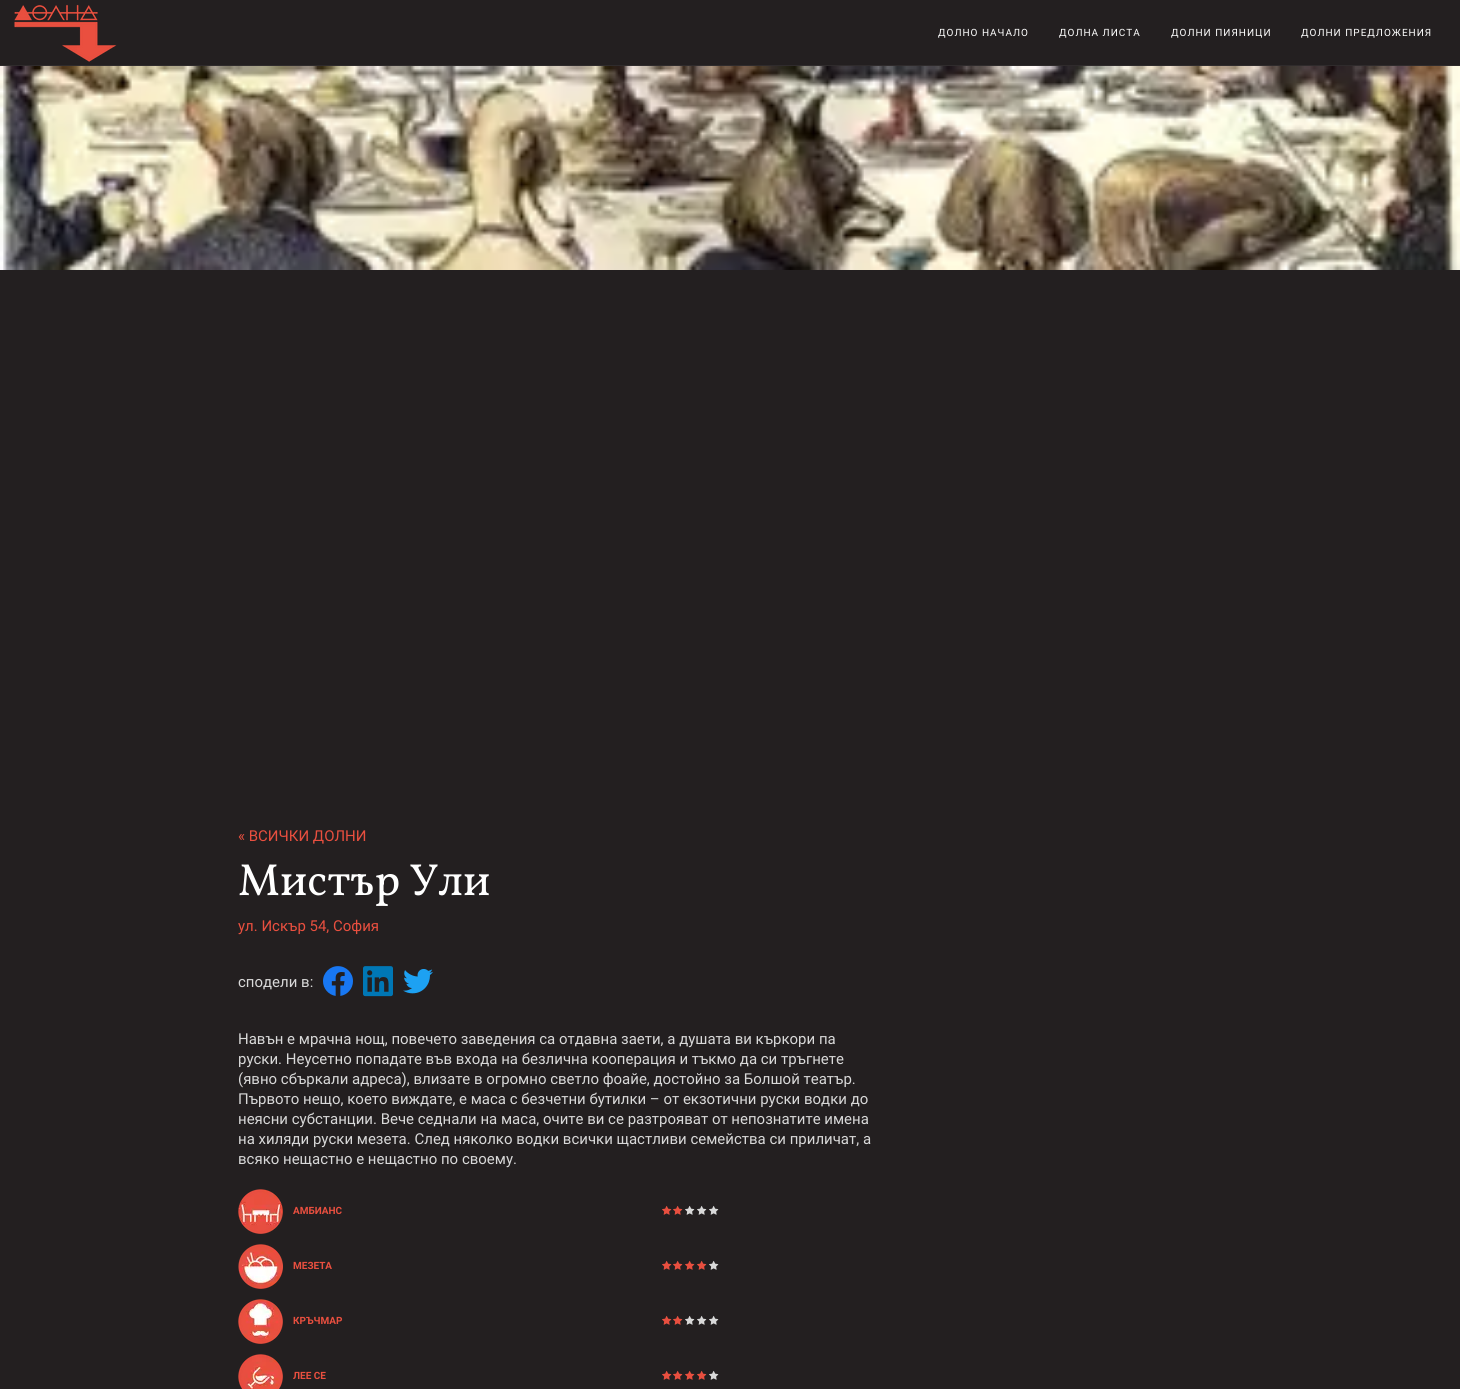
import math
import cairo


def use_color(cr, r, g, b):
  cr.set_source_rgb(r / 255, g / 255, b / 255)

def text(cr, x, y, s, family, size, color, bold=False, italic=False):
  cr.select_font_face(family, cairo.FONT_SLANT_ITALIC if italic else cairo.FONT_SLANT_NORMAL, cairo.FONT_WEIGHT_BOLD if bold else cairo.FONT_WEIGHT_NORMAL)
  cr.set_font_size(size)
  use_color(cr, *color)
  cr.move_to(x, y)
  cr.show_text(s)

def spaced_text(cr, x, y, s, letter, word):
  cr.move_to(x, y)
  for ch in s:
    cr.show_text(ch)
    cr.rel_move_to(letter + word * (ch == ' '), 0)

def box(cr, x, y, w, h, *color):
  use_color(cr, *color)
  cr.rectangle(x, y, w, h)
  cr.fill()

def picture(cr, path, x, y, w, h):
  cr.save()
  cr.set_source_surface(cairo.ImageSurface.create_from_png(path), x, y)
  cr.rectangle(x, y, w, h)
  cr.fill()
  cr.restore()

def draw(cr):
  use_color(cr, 35, 31, 32)
  cr.paint()
  box(cr, 0, 65, 1460, 1, 47, 43, 44)
  picture(cr, "img_01.png", 14, 4, 103, 58)
  picture(cr, "img_02.png", 0, 66, 1460, 204)
  picture(cr, "img_03.png", 323, 966, 30, 30)
  picture(cr, "img_04.png", 363, 966, 30, 31)
  picture(cr, "img_05.png", 403, 969, 30, 25)
  picture(cr, "img_06.png", 238, 1189, 45, 45)
  picture(cr, "img_07.png", 662, 1205, 10, 10)
  picture(cr, "img_07.png", 673, 1205, 10, 10)
  picture(cr, "img_08.png", 685, 1205, 10, 10)
  picture(cr, "img_08.png", 697, 1205, 10, 10)
  picture(cr, "img_08.png", 709, 1205, 10, 10)
  picture(cr, "img_09.png", 238, 1244, 45, 45)
  picture(cr, "img_07.png", 662, 1260, 10, 10)
  picture(cr, "img_07.png", 673, 1260, 10, 10)
  picture(cr, "img_07.png", 685, 1260, 10, 10)
  picture(cr, "img_07.png", 697, 1260, 10, 10)
  picture(cr, "img_08.png", 709, 1260, 10, 10)
  picture(cr, "img_10.png", 238, 1299, 45, 45)
  picture(cr, "img_07.png", 662, 1315, 10, 10)
  picture(cr, "img_07.png", 673, 1315, 10, 10)
  picture(cr, "img_08.png", 685, 1315, 10, 10)
  picture(cr, "img_08.png", 697, 1315, 10, 10)
  picture(cr, "img_08.png", 709, 1315, 10, 10)
  picture(cr, "img_11.png", 238, 1354, 45, 35)
  picture(cr, "img_07.png", 662, 1370, 10, 10)
  picture(cr, "img_07.png", 673, 1370, 10, 10)
  picture(cr, "img_07.png", 685, 1370, 10, 10)
  picture(cr, "img_07.png", 697, 1370, 10, 10)
  picture(cr, "img_08.png", 709, 1370, 10, 10)
  cr.select_font_face("Roboto")
  cr.set_font_size(10)
  use_color(cr, 255, 255, 255)
  spaced_text(cr, 938, 36, "ДОЛНО НАЧАЛО", 1, 0)
  spaced_text(cr, 1059, 36, "ДОЛНА ЛИСТА", 1, 0)
  spaced_text(cr, 1171, 36, "ДОЛНИ ПИЯНИЦИ", 1, 0)
  spaced_text(cr, 1301, 36, "ДОЛНИ ПРЕДЛОЖЕНИЯ", 1, 0)
  text(cr, 238, 841, "« ВСИЧКИ ДОЛНИ", "Roboto", 15, (233, 79, 63))
  text(cr, 238, 895, "Мистър Ули", "Vollkorn", 45, (255, 255, 255))
  text(cr, 238, 931, "ул. Искър 54, София", "Roboto", 15, (233, 79, 63))
  text(cr, 238, 987, "сподели в:", "Roboto", 15, (217, 217, 217))
  text(cr, 238, 1044, "Навън е мрачна нощ, повечето заведения са отдавна заети, а душата ви къркори па", "Roboto", 15, (217, 217, 217))
  text(cr, 238, 1064, "руски. Неусетно попадате във входа на безлична кооперация и тъкмо да си тръгнете", "Roboto", 15, (217, 217, 217))
  text(cr, 238, 1084, "(явно сбъркали адреса), влизате в огромно светло фоайе, достойно за Болшой театър.", "Roboto", 15, (217, 217, 217))
  text(cr, 238, 1104, "Първото нещо, което виждате, е маса с безчетни бутилки – от екзотични руски водки до", "Roboto", 15, (217, 217, 217))
  text(cr, 238, 1124, "неясни субстанции. Вече седнали на маса, очите ви се разтрояват от непознатите имена", "Roboto", 15, (217, 217, 217))
  text(cr, 238, 1144, "на хиляди руски мезета. След няколко водки всички щастливи семейства си приличат, а", "Roboto", 15, (217, 217, 217))
  text(cr, 238, 1164, "всяко нещастно е нещастно по своему.", "Roboto", 15, (217, 217, 217))
  text(cr, 293, 1214, "АМБИАНС", "Roboto", 10, (233, 79, 63), bold=True)
  text(cr, 293, 1269, "МЕЗЕТА", "Roboto", 10, (233, 79, 63), bold=True)
  text(cr, 293, 1324, "КРЪЧМАР", "Roboto", 10, (233, 79, 63), bold=True)
  text(cr, 293, 1379, "ЛЕЕ СЕ", "Roboto", 10, (233, 79, 63), bold=True)


surface = cairo.ImageSurface(cairo.FORMAT_RGB24, 1460, 1389)
cr = cairo.Context(surface)
options = cairo.FontOptions()
options.set_hint_metrics(cairo.HINT_METRICS_OFF)
options.set_hint_style(cairo.HINT_STYLE_NONE)
cr.set_font_options(options)
cr.set_miter_limit(4)
draw(cr)
surface.write_to_png("out.png")
